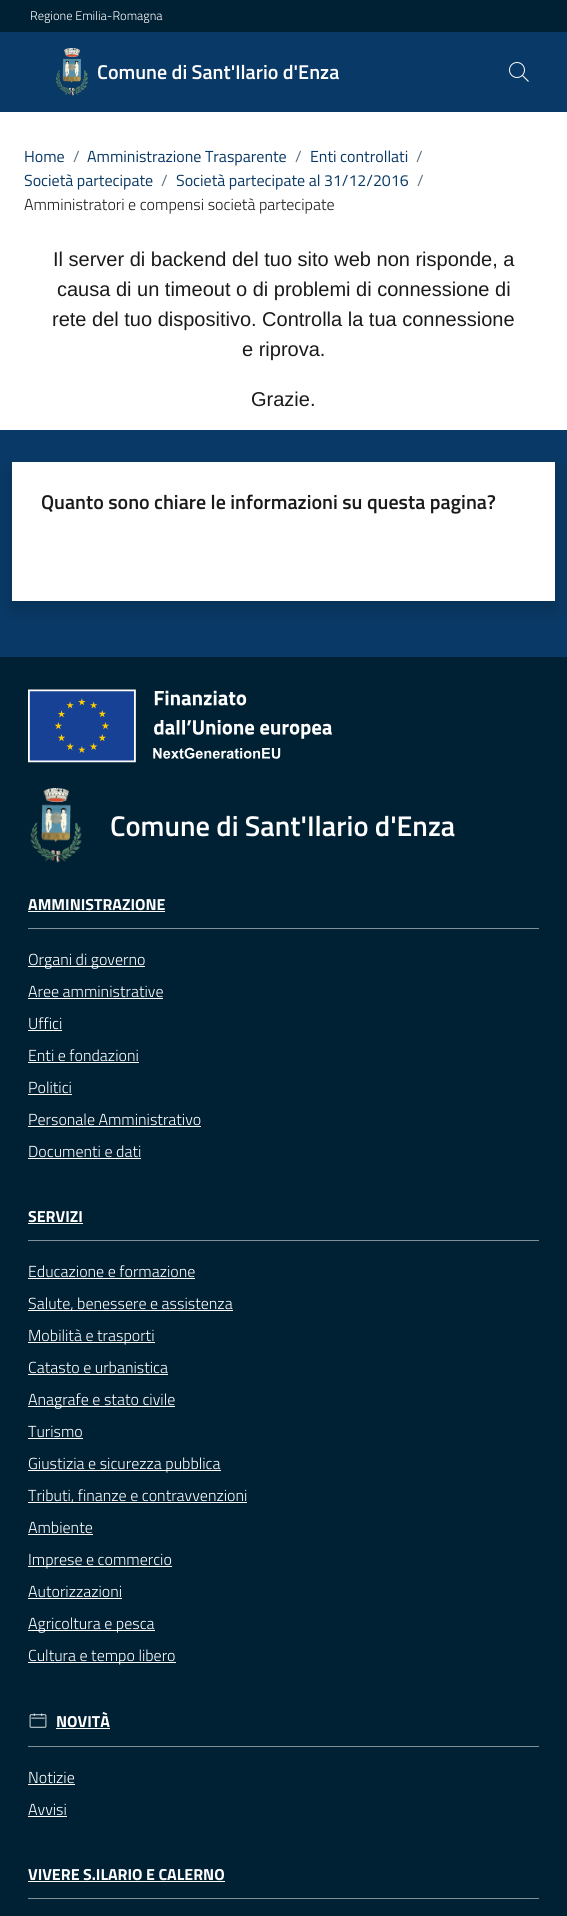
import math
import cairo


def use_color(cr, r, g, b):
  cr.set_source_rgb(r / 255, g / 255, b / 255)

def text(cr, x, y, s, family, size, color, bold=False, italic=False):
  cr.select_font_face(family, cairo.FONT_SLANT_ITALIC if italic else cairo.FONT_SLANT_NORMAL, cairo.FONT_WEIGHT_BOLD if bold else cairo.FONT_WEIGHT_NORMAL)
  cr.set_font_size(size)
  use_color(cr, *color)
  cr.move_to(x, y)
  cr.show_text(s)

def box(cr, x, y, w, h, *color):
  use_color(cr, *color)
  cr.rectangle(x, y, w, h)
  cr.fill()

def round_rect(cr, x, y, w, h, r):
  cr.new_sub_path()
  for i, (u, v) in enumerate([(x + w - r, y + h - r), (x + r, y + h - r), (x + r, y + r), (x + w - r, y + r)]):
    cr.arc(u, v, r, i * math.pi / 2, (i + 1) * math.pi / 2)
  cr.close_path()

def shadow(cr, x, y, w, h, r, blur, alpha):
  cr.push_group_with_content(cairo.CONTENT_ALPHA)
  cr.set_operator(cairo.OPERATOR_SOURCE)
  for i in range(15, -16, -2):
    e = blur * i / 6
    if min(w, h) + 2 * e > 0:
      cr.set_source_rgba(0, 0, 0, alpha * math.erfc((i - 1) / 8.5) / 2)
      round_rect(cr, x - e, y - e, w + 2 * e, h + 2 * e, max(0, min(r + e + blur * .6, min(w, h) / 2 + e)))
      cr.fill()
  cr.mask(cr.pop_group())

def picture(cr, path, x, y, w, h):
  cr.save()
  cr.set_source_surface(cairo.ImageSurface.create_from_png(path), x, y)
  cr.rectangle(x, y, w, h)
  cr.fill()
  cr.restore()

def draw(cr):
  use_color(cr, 255, 255, 255)
  cr.paint()
  box(cr, 0, 0, 567, 32, 0, 32, 51)
  box(cr, 0, 32, 567, 80, 9, 57, 102)
  picture(cr, "img_01.png", 55, 48, 33, 48)
  picture(cr, "img_02.png", 509, 62, 20, 20)
  box(cr, 0, 430, 567, 227, 9, 57, 102)
  use_color(cr, 0, 0, 0)
  shadow(cr, 12, 470, 543, 139, 0, 8, 0.15)
  box(cr, 12, 462, 543, 139, 255, 255, 255)
  box(cr, 0, 657, 567, 1259, 0, 32, 51)
  picture(cr, "img_03.png", 28, 689, 304, 74)
  picture(cr, "img_04.png", 30, 788, 52, 75)
  box(cr, 28, 928, 511, 1, 128, 144, 153)
  box(cr, 28, 911, 137, 1, 255, 255, 255)
  box(cr, 28, 966, 117, 1, 255, 255, 255)
  box(cr, 28, 998, 135, 1, 255, 255, 255)
  box(cr, 28, 1030, 34, 1, 255, 255, 255)
  box(cr, 28, 1062, 111, 1, 255, 255, 255)
  box(cr, 28, 1094, 44, 1, 255, 255, 255)
  box(cr, 28, 1126, 173, 1, 255, 255, 255)
  box(cr, 28, 1158, 113, 1, 255, 255, 255)
  box(cr, 28, 1240, 511, 1, 128, 144, 153)
  box(cr, 28, 1223, 55, 1, 255, 255, 255)
  box(cr, 28, 1278, 167, 1, 255, 255, 255)
  box(cr, 28, 1310, 205, 1, 255, 255, 255)
  box(cr, 28, 1342, 127, 1, 255, 255, 255)
  box(cr, 28, 1374, 140, 1, 255, 255, 255)
  box(cr, 28, 1406, 147, 1, 255, 255, 255)
  box(cr, 28, 1438, 55, 1, 255, 255, 255)
  box(cr, 28, 1470, 193, 1, 255, 255, 255)
  box(cr, 28, 1502, 219, 1, 255, 255, 255)
  box(cr, 28, 1534, 65, 1, 255, 255, 255)
  box(cr, 28, 1566, 144, 1, 255, 255, 255)
  box(cr, 28, 1598, 94, 1, 255, 255, 255)
  box(cr, 28, 1630, 127, 1, 255, 255, 255)
  box(cr, 28, 1662, 148, 1, 255, 255, 255)
  box(cr, 28, 1746, 511, 1, 128, 144, 153)
  picture(cr, "img_05.png", 29, 1713, 18, 15)
  box(cr, 56, 1728, 54, 1, 255, 255, 255)
  box(cr, 28, 1784, 47, 1, 255, 255, 255)
  box(cr, 28, 1816, 39, 1, 255, 255, 255)
  box(cr, 28, 1898, 511, 1, 128, 144, 153)
  box(cr, 28, 1881, 197, 1, 255, 255, 255)
  text(cr, 30, 20, "Regione Emilia-Romagna", "Titillium Web Light", 12.5, (255, 255, 255))
  text(cr, 97, 79, "Comune di Sant'Ilario d'Enza", "Titillium Web SemiBold", 20, (255, 255, 255))
  text(cr, 24, 162, "Home", "Titillium Web", 16, (9, 57, 102))
  text(cr, 73, 162, "/", "Titillium Web", 16, (93, 112, 131))
  text(cr, 87, 162, "Amministrazione Trasparente", "Titillium Web", 16, (9, 57, 102))
  text(cr, 295, 162, "/", "Titillium Web", 16, (93, 112, 131))
  text(cr, 310, 162, "Enti controllati", "Titillium Web", 16, (9, 57, 102))
  text(cr, 416, 162, "/", "Titillium Web", 16, (93, 112, 131))
  text(cr, 24, 186, "Società partecipate", "Titillium Web", 16, (9, 57, 102))
  text(cr, 161, 186, "/", "Titillium Web", 16, (93, 112, 131))
  text(cr, 176, 186, "Società partecipate al 31/12/2016", "Titillium Web", 16, (9, 57, 102))
  text(cr, 417, 186, "/", "Titillium Web", 16, (93, 112, 131))
  text(cr, 24, 210, "Amministratori e compensi società partecipate", "Titillium Web Light", 16, (26, 26, 26))
  text(cr, 53, 266, "Il server di backend del tuo sito web non risponde, a", "Liberation Sans", 20, (26, 26, 26))
  text(cr, 57, 296, "causa di un timeout o di problemi di connessione di", "Liberation Sans", 20, (26, 26, 26))
  text(cr, 52, 326, "rete del tuo dispositivo. Controlla la tua connessione", "Liberation Sans", 20, (26, 26, 26))
  text(cr, 242, 356, "e riprova.", "Liberation Sans", 20, (26, 26, 26))
  text(cr, 251, 406, "Grazie.", "Liberation Sans", 20, (26, 26, 26))
  text(cr, 41, 509, "Quanto sono chiare le informazioni su questa pagina?", "Titillium Web SemiBold", 20, (26, 26, 26))
  text(cr, 110, 836, "Comune di Sant'Ilario d'Enza", "Titillium Web SemiBold", 28.5, (255, 255, 255))
  text(cr, 28, 910, "AMMINISTRAZIONE", "Titillium Web", 16, (255, 255, 255), bold=True)
  text(cr, 28, 965, "Organi di governo", "Titillium Web Light", 16, (255, 255, 255))
  text(cr, 28, 997, "Aree amministrative", "Titillium Web Light", 16, (255, 255, 255))
  text(cr, 28, 1029, "Uffici", "Titillium Web Light", 16, (255, 255, 255))
  text(cr, 28, 1061, "Enti e fondazioni", "Titillium Web Light", 16, (255, 255, 255))
  text(cr, 28, 1093, "Politici", "Titillium Web Light", 16, (255, 255, 255))
  text(cr, 28, 1125, "Personale Amministrativo", "Titillium Web Light", 16, (255, 255, 255))
  text(cr, 28, 1157, "Documenti e dati", "Titillium Web Light", 16, (255, 255, 255))
  text(cr, 28, 1222, "SERVIZI", "Titillium Web", 16, (255, 255, 255), bold=True)
  text(cr, 28, 1277, "Educazione e formazione", "Titillium Web Light", 16, (255, 255, 255))
  text(cr, 28, 1309, "Salute, benessere e assistenza", "Titillium Web Light", 16, (255, 255, 255))
  text(cr, 28, 1341, "Mobilità e trasporti", "Titillium Web Light", 16, (255, 255, 255))
  text(cr, 28, 1373, "Catasto e urbanistica", "Titillium Web Light", 16, (255, 255, 255))
  text(cr, 28, 1405, "Anagrafe e stato civile", "Titillium Web Light", 16, (255, 255, 255))
  text(cr, 28, 1437, "Turismo", "Titillium Web Light", 16, (255, 255, 255))
  text(cr, 28, 1469, "Giustizia e sicurezza pubblica", "Titillium Web Light", 16, (255, 255, 255))
  text(cr, 28, 1501, "Tributi, finanze e contravvenzioni", "Titillium Web Light", 16, (255, 255, 255))
  text(cr, 28, 1533, "Ambiente", "Titillium Web Light", 16, (255, 255, 255))
  text(cr, 28, 1565, "Imprese e commercio", "Titillium Web Light", 16, (255, 255, 255))
  text(cr, 28, 1597, "Autorizzazioni", "Titillium Web Light", 16, (255, 255, 255))
  text(cr, 28, 1629, "Agricoltura e pesca", "Titillium Web Light", 16, (255, 255, 255))
  text(cr, 28, 1661, "Cultura e tempo libero", "Titillium Web Light", 16, (255, 255, 255))
  text(cr, 56, 1727, "NOVITÀ", "Titillium Web", 16, (255, 255, 255), bold=True)
  text(cr, 28, 1783, "Notizie", "Titillium Web Light", 16, (255, 255, 255))
  text(cr, 28, 1815, "Avvisi", "Titillium Web Light", 16, (255, 255, 255))
  text(cr, 28, 1880, "VIVERE S.ILARIO E CALERNO", "Titillium Web", 16, (255, 255, 255), bold=True)


surface = cairo.ImageSurface(cairo.FORMAT_RGB24, 567, 1916)
cr = cairo.Context(surface)
options = cairo.FontOptions()
options.set_hint_metrics(cairo.HINT_METRICS_OFF)
options.set_hint_style(cairo.HINT_STYLE_NONE)
cr.set_font_options(options)
cr.set_miter_limit(4)
draw(cr)
surface.write_to_png("out.png")
